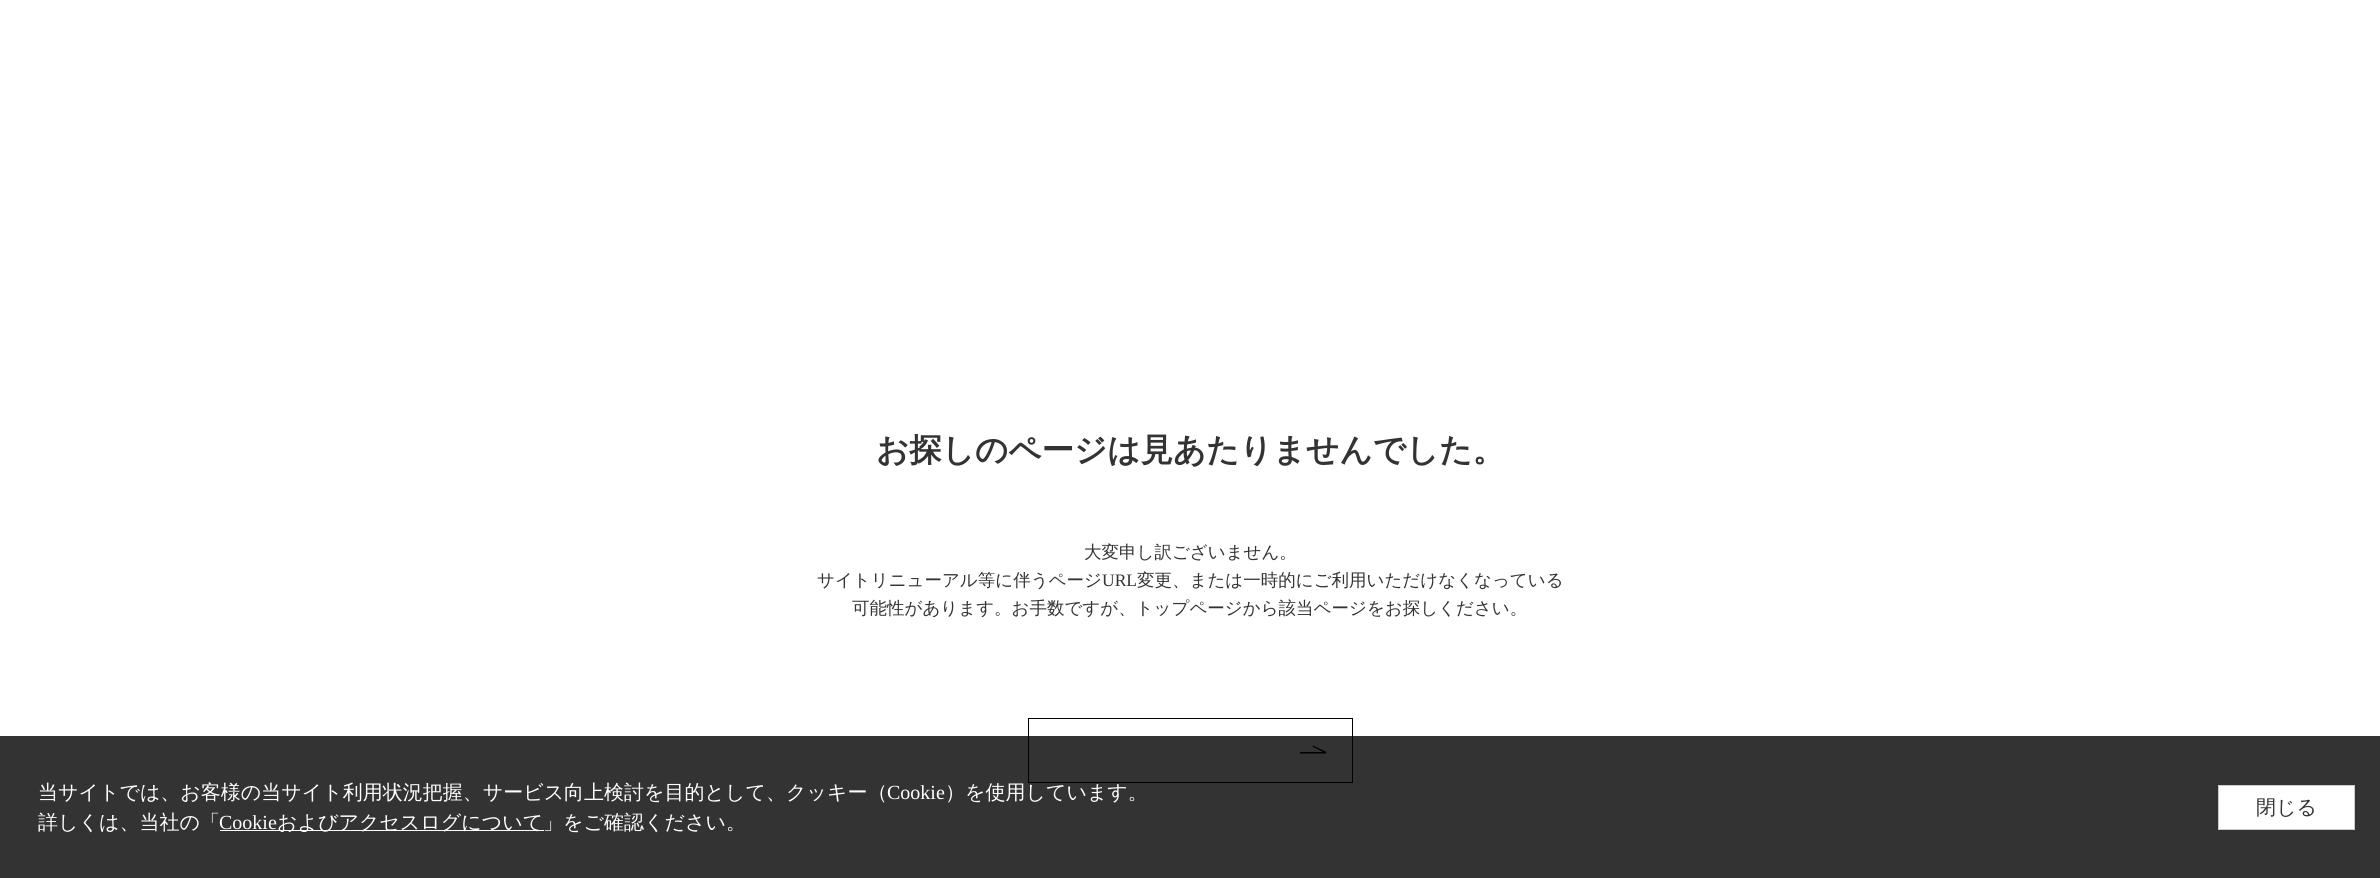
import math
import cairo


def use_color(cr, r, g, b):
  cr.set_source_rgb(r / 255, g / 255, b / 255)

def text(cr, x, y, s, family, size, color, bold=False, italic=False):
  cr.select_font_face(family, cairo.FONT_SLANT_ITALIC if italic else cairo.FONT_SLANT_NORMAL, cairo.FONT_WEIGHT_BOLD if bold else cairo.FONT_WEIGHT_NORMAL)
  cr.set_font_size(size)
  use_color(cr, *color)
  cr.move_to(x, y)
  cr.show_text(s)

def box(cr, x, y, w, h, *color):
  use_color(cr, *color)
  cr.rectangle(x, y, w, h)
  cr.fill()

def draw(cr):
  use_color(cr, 255, 255, 255)
  cr.paint()
  cr.rectangle(1028.5, 718.5, 324, 64)
  use_color(cr, 0, 0, 0)
  cr.set_line_width(1)
  cr.stroke()
  cr.new_path()
  cr.move_to(1326, 753.5)
  cr.line_to(1300, 753.5)
  cr.line_to(1300, 752)
  cr.line_to(1323, 752)
  cr.line_to(1312.5, 746.5)
  cr.line_to(1313, 745.5)
  cr.line_to(1326.5, 752)
  cr.close_path()
  cr.fill()
  cr.set_source_rgba(0, 0, 0, 0.8)
  cr.rectangle(0, 736, 2380, 142)
  cr.fill()
  box(cr, 220, 830, 324, 1, 255, 255, 255)
  cr.rectangle(2218.5, 785.5, 136, 44)
  cr.fill_preserve()
  use_color(cr, 204, 204, 204)
  cr.stroke()
  text(cr, 876, 461, "お探しのページは見あたりませんでした。", "WenQuanYi Zen Hei", 32.5, (51, 51, 51), bold=True)
  text(cr, 1084, 558, "大変申し訳ございません。", "WenQuanYi Zen Hei Medium", 17.5, (51, 51, 51))
  text(cr, 817, 586, "サイトリニューアル等に伴うページ", "WenQuanYi Zen Hei Medium", 17.5, (51, 51, 51))
  text(cr, 1102, 586, "URL", "Liberation Serif", 17.5, (51, 51, 51))
  text(cr, 1137, 586, "変更、または一時的にご利用いただけなくなっている", "WenQuanYi Zen Hei Medium", 17.5, (51, 51, 51))
  text(cr, 852, 614, "可能性があります。お手数ですが、トップページから該当ページをお探しください。", "WenQuanYi Zen Hei Medium", 17.5, (51, 51, 51))
  text(cr, 38, 799, "当サイトでは、お客様の当サイト利用状況把握、サービス向上検討を目的として、クッキー（", "WenQuanYi Zen Hei Medium", 20, (255, 255, 255))
  text(cr, 887, 799, "Cookie", "Liberation Serif", 20, (255, 255, 255))
  text(cr, 945, 799, "）を使用しています。", "WenQuanYi Zen Hei Medium", 20, (255, 255, 255))
  text(cr, 38, 829, "詳しくは、当社の「", "WenQuanYi Zen Hei Medium", 20, (255, 255, 255))
  text(cr, 219, 829, "Cookie", "Liberation Serif", 20, (255, 255, 255))
  text(cr, 277, 829, "およびアクセスログについて」をご確認ください。", "WenQuanYi Zen Hei Medium", 20, (255, 255, 255))
  text(cr, 2256, 814, "閉じる", "WenQuanYi Zen Hei Medium", 20, (51, 51, 51))


surface = cairo.ImageSurface(cairo.FORMAT_RGB24, 2380, 878)
cr = cairo.Context(surface)
options = cairo.FontOptions()
options.set_hint_metrics(cairo.HINT_METRICS_OFF)
options.set_hint_style(cairo.HINT_STYLE_NONE)
cr.set_font_options(options)
cr.set_miter_limit(4)
draw(cr)
surface.write_to_png("out.png")
